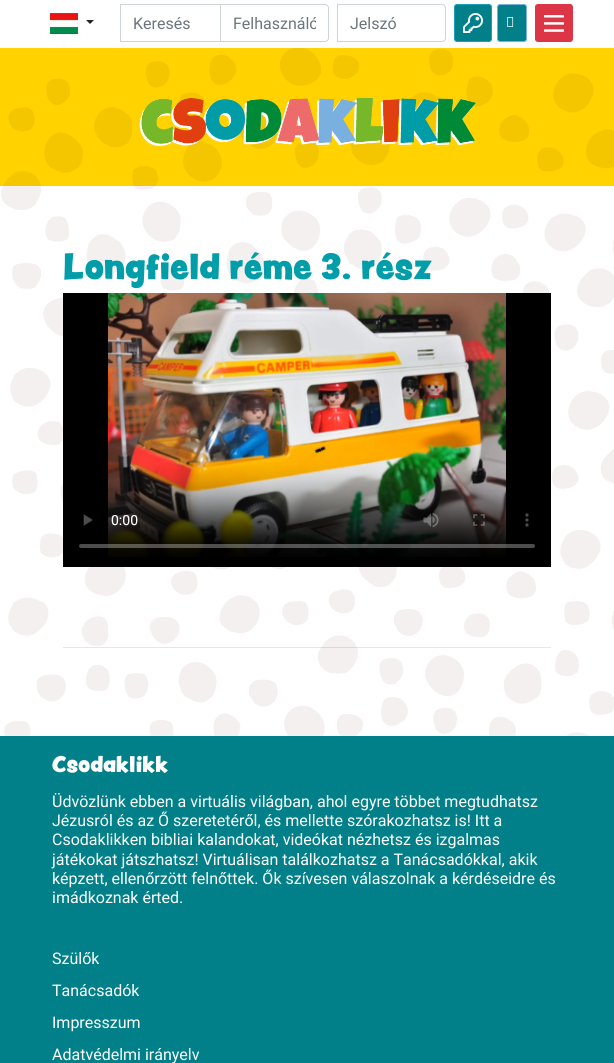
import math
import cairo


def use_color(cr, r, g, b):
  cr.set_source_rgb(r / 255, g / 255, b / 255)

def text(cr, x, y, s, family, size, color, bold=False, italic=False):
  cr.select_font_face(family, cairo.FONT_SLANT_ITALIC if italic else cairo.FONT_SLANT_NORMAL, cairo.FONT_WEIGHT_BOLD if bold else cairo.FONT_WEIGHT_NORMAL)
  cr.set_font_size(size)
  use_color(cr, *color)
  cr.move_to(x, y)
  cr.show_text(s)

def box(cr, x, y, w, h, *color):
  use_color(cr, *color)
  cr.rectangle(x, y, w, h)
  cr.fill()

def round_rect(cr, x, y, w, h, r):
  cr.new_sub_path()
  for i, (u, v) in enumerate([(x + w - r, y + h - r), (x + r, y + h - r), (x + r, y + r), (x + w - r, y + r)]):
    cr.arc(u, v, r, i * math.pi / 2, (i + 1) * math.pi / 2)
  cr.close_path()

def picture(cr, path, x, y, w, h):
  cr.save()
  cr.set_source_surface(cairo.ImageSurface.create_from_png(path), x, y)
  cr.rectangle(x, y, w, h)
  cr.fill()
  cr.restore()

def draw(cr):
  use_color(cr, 255, 255, 255)
  cr.paint()
  picture(cr, "img_01.png", 1, 186, 613, 550)
  picture(cr, "img_02.png", 50, 13, 28, 21)
  use_color(cr, 33, 37, 41)
  cr.new_path()
  cr.move_to(86, 20)
  cr.line_to(94, 20)
  cr.line_to(90, 24)
  cr.close_path()
  cr.fill()
  cr.rectangle(120.5, 4.5, 129, 37)
  use_color(cr, 206, 212, 218)
  cr.set_line_width(1)
  cr.stroke()
  use_color(cr, 255, 255, 255)
  cr.new_path()
  cr.move_to(220.5, 4.5)
  cr.line_to(325, 4.5)
  cr.curve_to(327, 4.5, 328.5, 6, 328.5, 8)
  cr.line_to(328.5, 38)
  cr.curve_to(328.5, 40, 327, 41.5, 325, 41.5)
  cr.line_to(220.5, 41.5)
  cr.close_path()
  cr.fill_preserve()
  use_color(cr, 206, 212, 218)
  cr.stroke()
  cr.new_path()
  cr.move_to(337.5, 4.5)
  cr.line_to(442, 4.5)
  cr.curve_to(444, 4.5, 445.5, 6, 445.5, 8)
  cr.line_to(445.5, 38)
  cr.curve_to(445.5, 40, 444, 41.5, 442, 41.5)
  cr.line_to(337.5, 41.5)
  cr.close_path()
  cr.stroke()
  use_color(cr, 1, 128, 137)
  round_rect(cr, 454.5, 4.5, 37, 37, 2.5)
  cr.fill_preserve()
  use_color(cr, 23, 162, 184)
  cr.stroke()
  picture(cr, "img_03.png", 463, 13, 20, 20)
  use_color(cr, 1, 128, 137)
  round_rect(cr, 497.5, 4.5, 29, 37, 2.5)
  cr.fill_preserve()
  use_color(cr, 122, 176, 224)
  cr.stroke()
  picture(cr, "img_04.png", 507, 17, 7, 10)
  use_color(cr, 220, 53, 69)
  round_rect(cr, 535.5, 4.5, 37, 37, 2.5)
  cr.fill_preserve()
  cr.stroke()
  picture(cr, "img_05.png", 544, 15, 20, 17)
  box(cr, 0, 48, 614, 138, 255, 210, 0)
  picture(cr, "img_06.png", 3, 48, 611, 138)
  picture(cr, "img_07.png", 139, 97, 337, 49)
  box(cr, 63, 293, 488, 274, 0, 0, 0)
  picture(cr, "img_08.png", 79, 293, 456, 264)
  cr.set_source_rgba(0, 0, 0, 0.1)
  cr.rectangle(63, 647, 488, 1)
  cr.fill()
  box(cr, 0, 736, 614, 327, 1, 128, 137)
  text(cr, 133, 29, "Keresés", "Roboto", 16, (108, 117, 125))
  cr.save()
  cr.rectangle(233, 14, 83, 19)
  cr.clip()
  text(cr, 233, 29, "Felhasználó", "Roboto", 16, (108, 117, 125))
  cr.restore()
  text(cr, 350, 29, "Jelszó", "Roboto", 16, (108, 117, 125))
  text(cr, 63, 279, "Longfield réme 3. rész", "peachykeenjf", 32, (1, 157, 168))
  text(cr, 52, 772, "Csodaklikk", "peachykeenjf", 20, (255, 255, 255))
  text(cr, 52, 807, "Üdvözlünk ebben a virtuális világban, ahol egyre többet megtudhatsz", "Roboto", 16, (255, 255, 255))
  text(cr, 52, 826, "Jézusról és az Ő szeretetéről, és mellette szórakozhatsz is! Itt a", "Roboto", 16, (255, 255, 255))
  text(cr, 52, 845, "Csodaklikken bibliai kalandokat, videókat nézhetsz és izgalmas", "Roboto", 16, (255, 255, 255))
  text(cr, 52, 865, "játékokat játszhatsz! Virtuálisan találkozhatsz a Tanácsadókkal, akik", "Roboto", 16, (255, 255, 255))
  text(cr, 52, 884, "képzett, ellenőrzött felnőttek. Ők szívesen válaszolnak a kérdéseidre és", "Roboto", 16, (255, 255, 255))
  text(cr, 52, 903, "imádkoznak érted.", "Roboto", 16, (255, 255, 255))
  text(cr, 52, 964, "Szülők", "Roboto", 16, (255, 255, 255))
  text(cr, 52, 996, "Tanácsadók", "Roboto", 16, (255, 255, 255))
  text(cr, 52, 1028, "Impresszum", "Roboto", 16, (255, 255, 255))
  text(cr, 52, 1060, "Adatvédelmi irányelv", "Roboto", 16, (255, 255, 255))


surface = cairo.ImageSurface(cairo.FORMAT_RGB24, 614, 1063)
cr = cairo.Context(surface)
options = cairo.FontOptions()
options.set_hint_metrics(cairo.HINT_METRICS_OFF)
options.set_hint_style(cairo.HINT_STYLE_NONE)
cr.set_font_options(options)
cr.set_miter_limit(4)
draw(cr)
surface.write_to_png("out.png")
